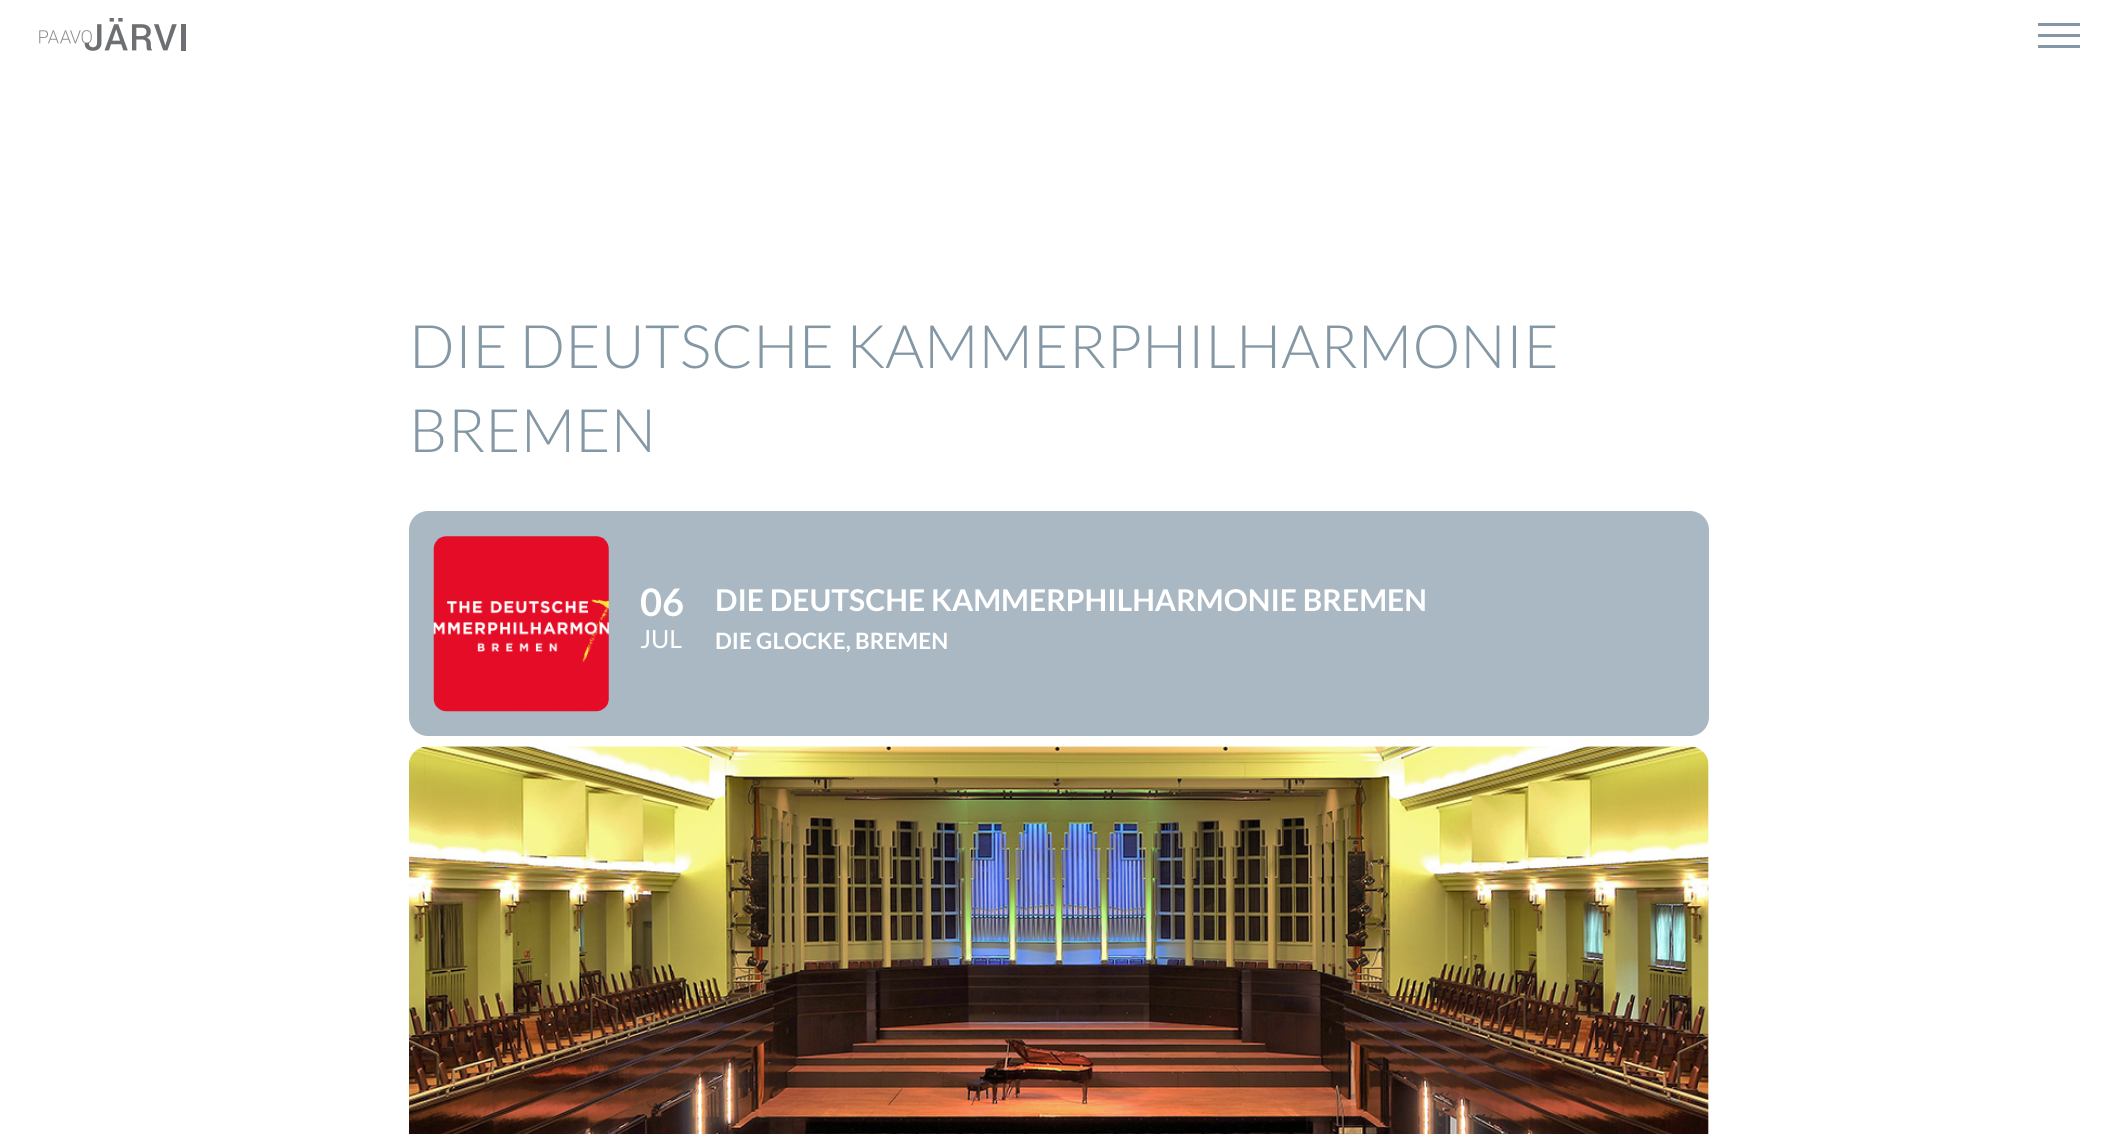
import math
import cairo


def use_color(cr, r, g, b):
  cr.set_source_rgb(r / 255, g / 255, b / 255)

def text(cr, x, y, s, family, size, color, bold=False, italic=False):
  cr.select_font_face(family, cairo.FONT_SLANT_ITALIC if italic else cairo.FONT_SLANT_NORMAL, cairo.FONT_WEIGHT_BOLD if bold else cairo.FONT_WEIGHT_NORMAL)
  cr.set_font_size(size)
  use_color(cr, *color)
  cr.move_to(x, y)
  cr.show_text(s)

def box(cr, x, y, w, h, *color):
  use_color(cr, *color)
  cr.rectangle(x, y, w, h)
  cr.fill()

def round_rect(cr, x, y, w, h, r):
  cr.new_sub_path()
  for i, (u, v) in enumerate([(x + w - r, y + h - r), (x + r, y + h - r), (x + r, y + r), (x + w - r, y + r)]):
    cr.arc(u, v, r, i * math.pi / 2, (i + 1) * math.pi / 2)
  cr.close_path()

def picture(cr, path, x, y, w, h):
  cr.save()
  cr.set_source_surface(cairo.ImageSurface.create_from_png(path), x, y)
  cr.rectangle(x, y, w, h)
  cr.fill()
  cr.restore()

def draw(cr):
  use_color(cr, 255, 255, 255)
  cr.paint()
  picture(cr, "img_01.png", 39, 18, 147, 33)
  box(cr, 2038, 23, 42, 3, 131, 151, 164)
  box(cr, 2038, 34, 42, 3, 131, 151, 164)
  box(cr, 2038, 45, 42, 3, 131, 151, 164)
  use_color(cr, 169, 184, 194)
  round_rect(cr, 409, 511, 1300, 225, 19)
  cr.fill()
  picture(cr, "img_02.png", 433, 536, 176, 176)
  picture(cr, "img_03.png", 409, 746, 1300, 388)
  text(cr, 409, 368, "DIE DEUTSCHE KAMMERPHILHARMONIE", "Lato Light", 60, (131, 151, 164))
  text(cr, 409, 452, "BREMEN", "Lato Light", 60, (131, 151, 164))
  text(cr, 640, 616, "06", "Lato", 38, (255, 255, 255), bold=True)
  text(cr, 640, 648, "JUL", "Lato", 25, (255, 255, 255))
  text(cr, 715, 611, "DIE DEUTSCHE KAMMERPHILHARMONIE BREMEN", "Lato", 30, (255, 255, 255), bold=True)
  text(cr, 715, 649, "DIE GLOCKE, BREMEN", "Lato", 22.5, (255, 255, 255), bold=True)


surface = cairo.ImageSurface(cairo.FORMAT_RGB24, 2117, 1134)
cr = cairo.Context(surface)
options = cairo.FontOptions()
options.set_hint_metrics(cairo.HINT_METRICS_OFF)
options.set_hint_style(cairo.HINT_STYLE_NONE)
cr.set_font_options(options)
cr.set_miter_limit(4)
draw(cr)
surface.write_to_png("out.png")
